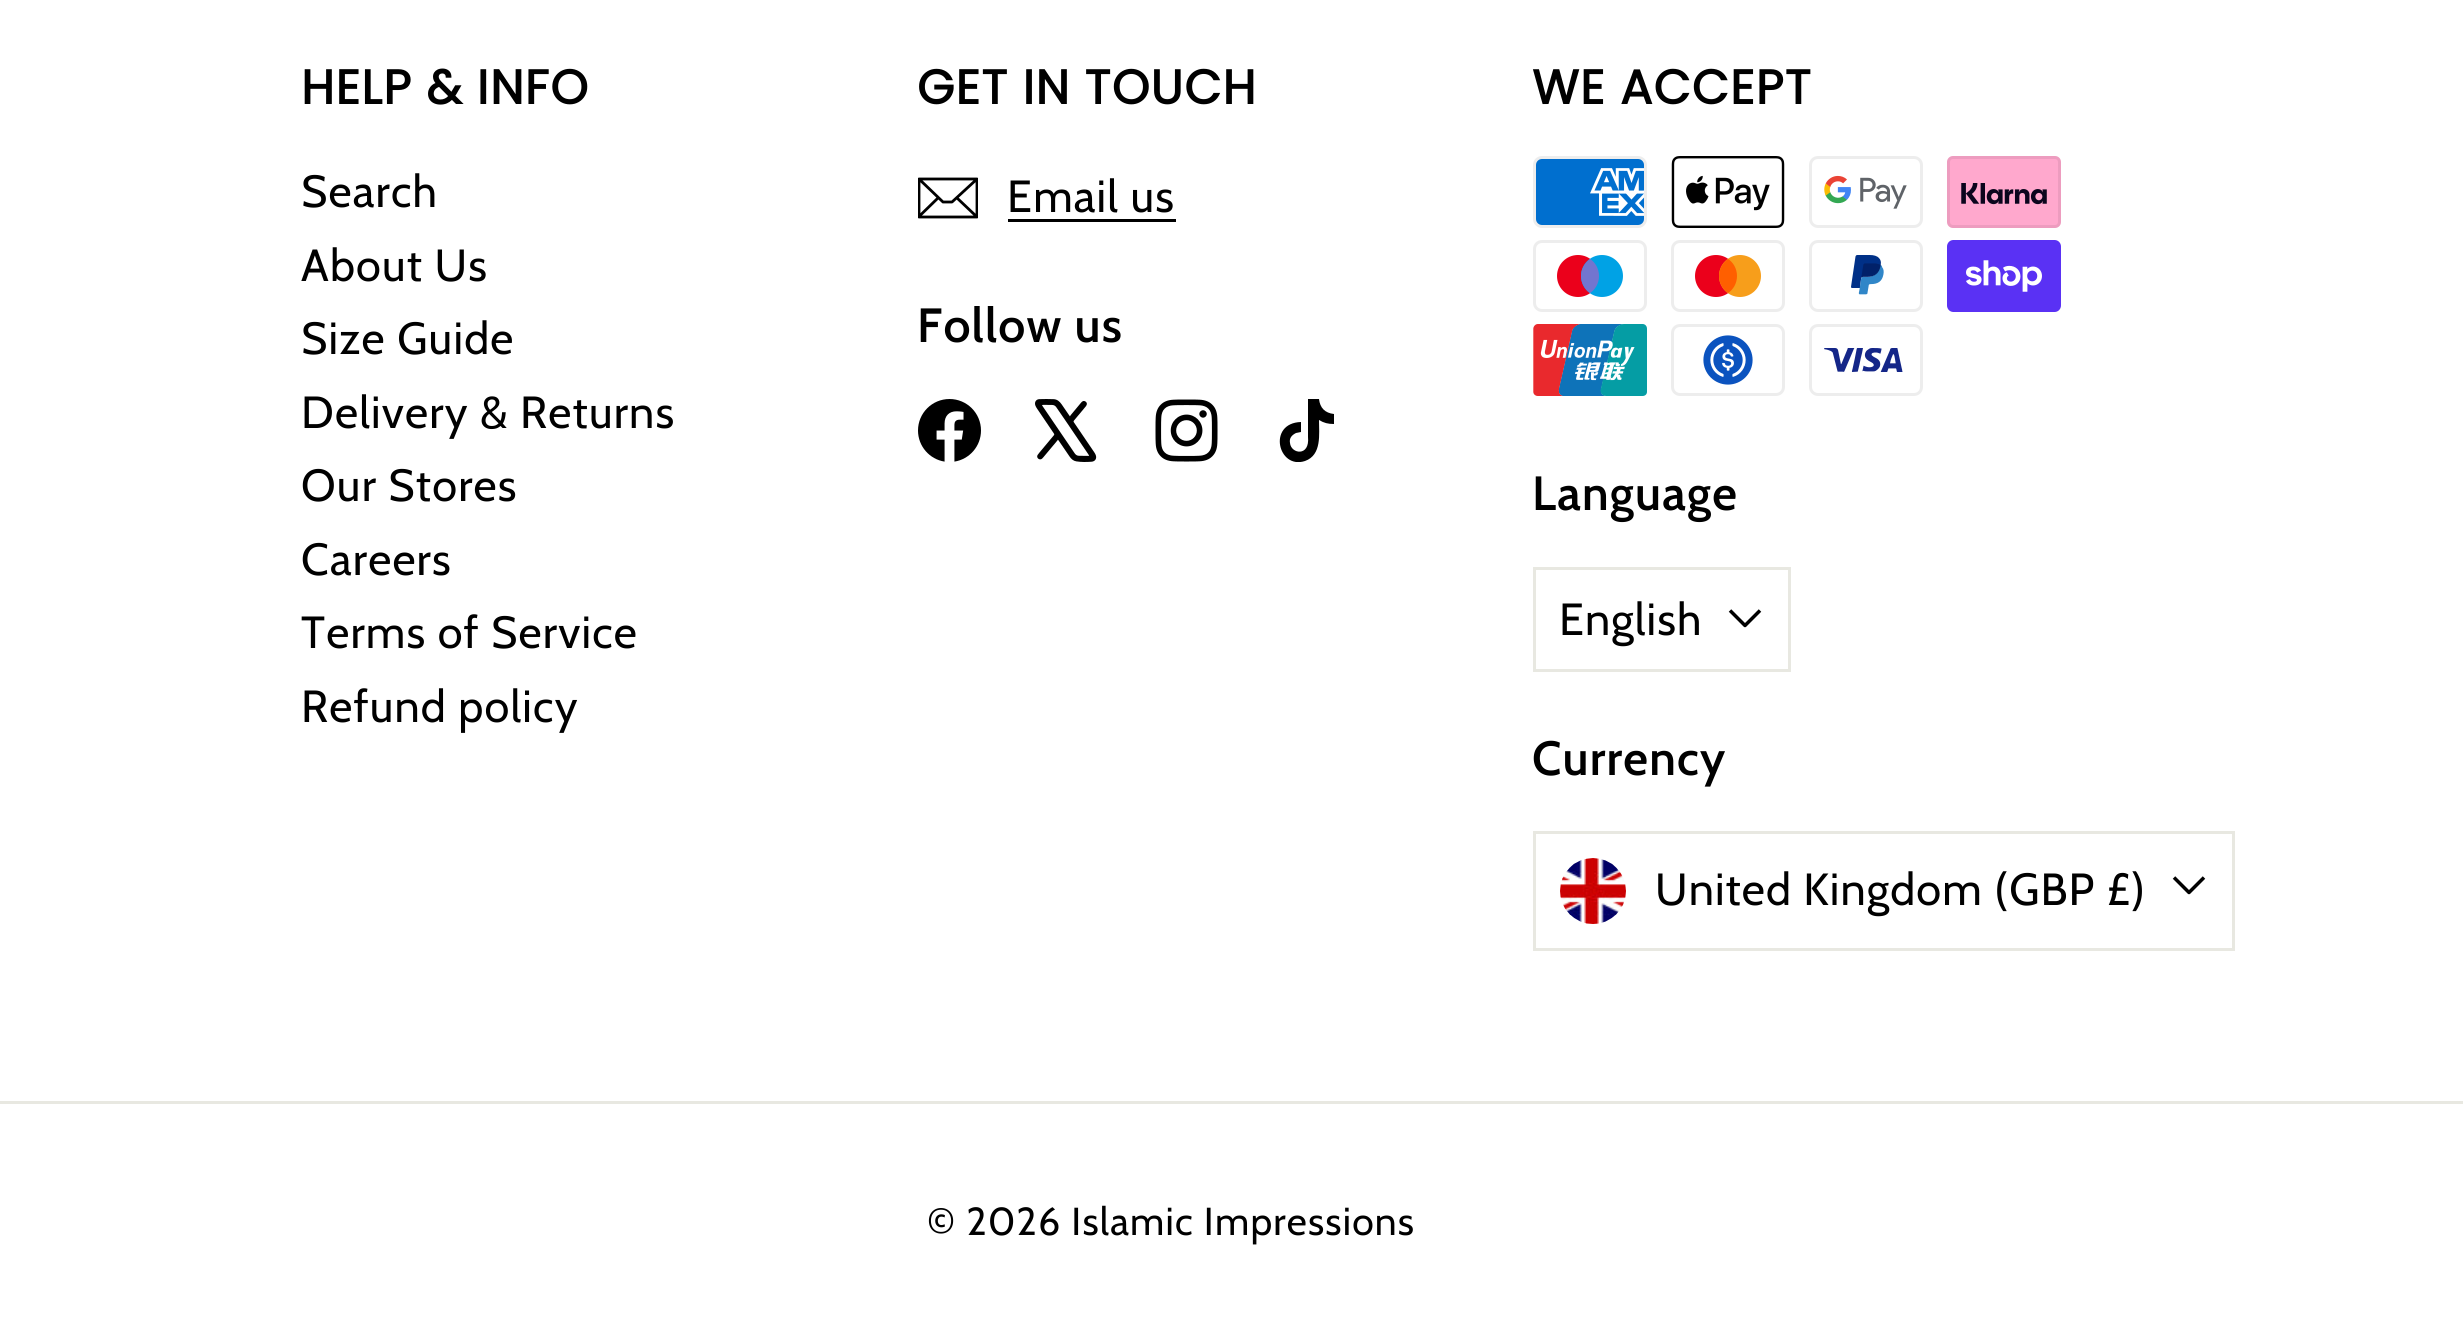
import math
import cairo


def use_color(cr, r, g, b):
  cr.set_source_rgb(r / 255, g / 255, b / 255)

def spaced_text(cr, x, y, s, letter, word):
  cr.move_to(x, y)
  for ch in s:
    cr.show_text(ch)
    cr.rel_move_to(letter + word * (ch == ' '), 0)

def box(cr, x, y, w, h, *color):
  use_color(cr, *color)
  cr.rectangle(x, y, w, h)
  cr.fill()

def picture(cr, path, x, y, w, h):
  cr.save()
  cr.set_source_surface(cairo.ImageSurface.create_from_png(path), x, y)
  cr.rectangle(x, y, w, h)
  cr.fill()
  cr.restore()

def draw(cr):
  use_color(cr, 255, 255, 255)
  cr.paint()
  cr.save()
  cr.rectangle(918, 168, 60, 60)
  cr.clip()
  cr.new_path()
  cr.move_to(977, 217)
  cr.line_to(919, 217)
  cr.line_to(919, 179)
  cr.line_to(977, 179)
  cr.close_path()
  cr.move_to(919, 179)
  cr.line_to(943, 202)
  cr.line_to(952, 202)
  cr.line_to(977, 179)
  cr.move_to(938.5, 197.5)
  cr.line_to(919.5, 216)
  cr.move_to(976.5, 216.5)
  cr.line_to(956.5, 197.5)
  use_color(cr, 0, 0, 0)
  cr.set_line_width(2.8)
  cr.set_line_join(cairo.LINE_JOIN_ROUND)
  cr.stroke()
  cr.restore()
  box(cr, 1008, 219, 168, 3, 0, 0, 0)
  picture(cr, "img_01.png", 918, 399, 63, 63)
  picture(cr, "img_02.png", 1035, 399, 62, 63)
  picture(cr, "img_03.png", 1155, 399, 63, 63)
  cr.save()
  cr.rectangle(1275, 399, 63, 63)
  cr.clip()
  cr.set_fill_rule(cairo.FILL_RULE_EVEN_ODD)
  cr.new_path()
  cr.move_to(1319, 399)
  cr.curve_to(1320, 408, 1325, 413, 1334, 414)
  cr.line_to(1334, 424)
  cr.curve_to(1328, 424, 1324, 423, 1319, 420)
  cr.curve_to(1319, 434, 1322, 455, 1305, 461)
  cr.curve_to(1278, 470, 1267, 423, 1301, 422)
  cr.line_to(1301, 432)
  cr.line_to(1296, 433)
  cr.curve_to(1292, 435, 1289, 438, 1290, 443)
  cr.curve_to(1291, 454, 1310, 457, 1308, 437)
  cr.line_to(1308, 399)
  cr.close_path()
  cr.fill()
  cr.restore()
  picture(cr, "img_04.png", 1533, 156, 114, 72)
  picture(cr, "img_05.png", 1671, 156, 114, 72)
  picture(cr, "img_06.png", 1809, 156, 114, 72)
  picture(cr, "img_07.png", 1947, 156, 114, 72)
  picture(cr, "img_08.png", 1533, 240, 114, 72)
  picture(cr, "img_09.png", 1671, 240, 114, 72)
  picture(cr, "img_10.png", 1809, 240, 114, 72)
  picture(cr, "img_11.png", 1947, 240, 114, 72)
  picture(cr, "img_12.png", 1533, 324, 114, 72)
  picture(cr, "img_13.png", 1671, 324, 114, 72)
  picture(cr, "img_14.png", 1809, 324, 114, 72)
  cr.rectangle(1534.5, 568.5, 255, 102)
  use_color(cr, 232, 232, 225)
  cr.set_line_width(3)
  cr.stroke()
  cr.new_path()
  cr.move_to(1730, 610.5)
  cr.line_to(1745, 625.5)
  cr.line_to(1760, 610.5)
  use_color(cr, 0, 0, 0)
  cr.set_line_width(3.5)
  cr.set_line_join(cairo.LINE_JOIN_ROUND)
  cr.stroke()
  cr.rectangle(1534.5, 832.5, 699, 117)
  use_color(cr, 232, 232, 225)
  cr.set_line_width(3)
  cr.set_line_join(cairo.LINE_JOIN_MITER)
  cr.stroke()
  picture(cr, "img_15.png", 1560, 858, 66, 66)
  cr.new_path()
  cr.move_to(2174, 877.5)
  cr.line_to(2189, 892.5)
  cr.line_to(2204, 877.5)
  use_color(cr, 0, 0, 0)
  cr.set_line_width(3.5)
  cr.set_line_join(cairo.LINE_JOIN_ROUND)
  cr.stroke()
  box(cr, 0, 1101, 2463, 3, 232, 232, 225)
  cr.select_font_face("Poppins", cairo.FONT_SLANT_NORMAL, cairo.FONT_WEIGHT_BOLD)
  cr.set_font_size(48)
  use_color(cr, 0, 0, 0)
  spaced_text(cr, 301, 104, "HELP & INFO", 1.2, 0)
  cr.select_font_face("Cabin")
  cr.set_font_size(45)
  spaced_text(cr, 301, 207, "Search", 1.2, 0)
  spaced_text(cr, 301, 281, "About Us", 1.2, 0)
  spaced_text(cr, 301, 354, "Size Guide", 1.2, 0)
  spaced_text(cr, 301, 428, "Delivery & Returns", 1.2, 0)
  spaced_text(cr, 301, 501, "Our Stores", 1.2, 0)
  spaced_text(cr, 301, 575, "Careers", 1.2, 0)
  spaced_text(cr, 301, 648, "Terms of Service", 1.2, 0)
  spaced_text(cr, 301, 722, "Refund policy", 1.2, 0)
  cr.select_font_face("Poppins", cairo.FONT_SLANT_NORMAL, cairo.FONT_WEIGHT_BOLD)
  cr.set_font_size(48)
  spaced_text(cr, 917, 104, "GET IN TOUCH", 1.2, 0)
  cr.select_font_face("Cabin")
  cr.set_font_size(45)
  spaced_text(cr, 1007, 212, "Email us", 1.2, 0)
  cr.select_font_face("Cabin SemiBold")
  cr.set_font_size(48)
  spaced_text(cr, 917, 342, "Follow us", 1.2, 0)
  cr.select_font_face("Poppins", cairo.FONT_SLANT_NORMAL, cairo.FONT_WEIGHT_BOLD)
  spaced_text(cr, 1532, 104, "WE ACCEPT", 1.2, 0)
  cr.select_font_face("Cabin SemiBold")
  spaced_text(cr, 1532, 510, "Language", 1.2, 0)
  cr.select_font_face("Cabin")
  cr.set_font_size(45)
  spaced_text(cr, 1559, 635, "English", 1.1, 0)
  cr.select_font_face("Cabin SemiBold")
  cr.set_font_size(48)
  spaced_text(cr, 1532, 775, "Currency", 1.2, 0)
  cr.select_font_face("Cabin")
  cr.set_font_size(45)
  spaced_text(cr, 1655, 905, "United Kingdom (GBP £)", 1.1, 0)
  cr.set_font_size(39)
  spaced_text(cr, 927, 1235, "© 2026 Islamic Impressions", 1.2, 0)


surface = cairo.ImageSurface(cairo.FORMAT_RGB24, 2463, 1337)
cr = cairo.Context(surface)
options = cairo.FontOptions()
options.set_hint_metrics(cairo.HINT_METRICS_OFF)
options.set_hint_style(cairo.HINT_STYLE_NONE)
cr.set_font_options(options)
cr.set_miter_limit(4)
draw(cr)
surface.write_to_png("out.png")
